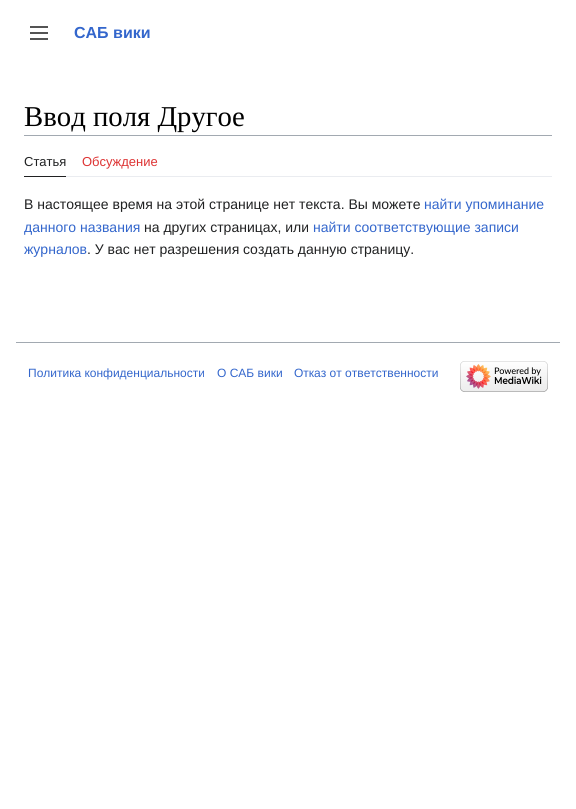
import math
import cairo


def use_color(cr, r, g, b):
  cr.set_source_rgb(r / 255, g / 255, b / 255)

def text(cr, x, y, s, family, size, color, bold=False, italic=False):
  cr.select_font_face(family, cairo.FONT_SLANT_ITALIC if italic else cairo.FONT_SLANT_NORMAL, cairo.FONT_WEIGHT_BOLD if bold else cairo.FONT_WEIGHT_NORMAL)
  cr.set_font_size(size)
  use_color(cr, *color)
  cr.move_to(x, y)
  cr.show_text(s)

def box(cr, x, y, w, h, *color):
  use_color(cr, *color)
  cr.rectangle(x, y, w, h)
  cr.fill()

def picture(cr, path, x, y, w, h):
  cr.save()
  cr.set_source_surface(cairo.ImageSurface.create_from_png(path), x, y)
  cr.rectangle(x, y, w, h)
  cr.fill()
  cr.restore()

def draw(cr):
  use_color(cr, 255, 255, 255)
  cr.paint()
  picture(cr, "img_01.png", 30, 26, 18, 14)
  box(cr, 24, 135, 528, 1, 162, 169, 177)
  box(cr, 66, 176, 486, 1, 234, 236, 240)
  box(cr, 24, 176, 42, 1, 32, 33, 34)
  box(cr, 16, 342, 544, 1, 162, 169, 177)
  picture(cr, "img_02.png", 460, 361, 88, 31)
  text(cr, 74, 38, "САБ вики", "Liberation Sans", 16, (51, 102, 204), bold=True)
  text(cr, 24, 126, "Ввод поля Другое", "Liberation Serif", 28.75, (0, 0, 0))
  text(cr, 24, 166, "Статья", "Liberation Sans", 13, (32, 33, 34))
  text(cr, 82, 166, "Обсуждение", "Liberation Sans", 13, (221, 51, 51))
  text(cr, 24, 209, "В настоящее время на этой странице нет текста. Вы можете", "Liberation Sans", 14, (32, 33, 34))
  text(cr, 424, 209, "найти упоминание", "Liberation Sans", 14, (51, 102, 204))
  text(cr, 24, 232, "данного названия", "Liberation Sans", 14, (51, 102, 204))
  text(cr, 144, 232, "на других страницах, или", "Liberation Sans", 14, (32, 33, 34))
  text(cr, 313, 232, "найти соответствующие записи", "Liberation Sans", 14, (51, 102, 204))
  text(cr, 24, 254, "журналов", "Liberation Sans", 14, (51, 102, 204))
  text(cr, 87, 254, ". У вас нет разрешения создать данную страницу.", "Liberation Sans", 14, (32, 33, 34))
  text(cr, 28, 377, "Политика конфиденциальности", "Liberation Sans", 12, (51, 102, 204))
  text(cr, 217, 377, "О САБ вики", "Liberation Sans", 12, (51, 102, 204))
  text(cr, 294, 377, "Отказ от ответственности", "Liberation Sans", 12, (51, 102, 204))


surface = cairo.ImageSurface(cairo.FORMAT_RGB24, 576, 809)
cr = cairo.Context(surface)
options = cairo.FontOptions()
options.set_hint_metrics(cairo.HINT_METRICS_OFF)
options.set_hint_style(cairo.HINT_STYLE_NONE)
cr.set_font_options(options)
cr.set_miter_limit(4)
draw(cr)
surface.write_to_png("out.png")
